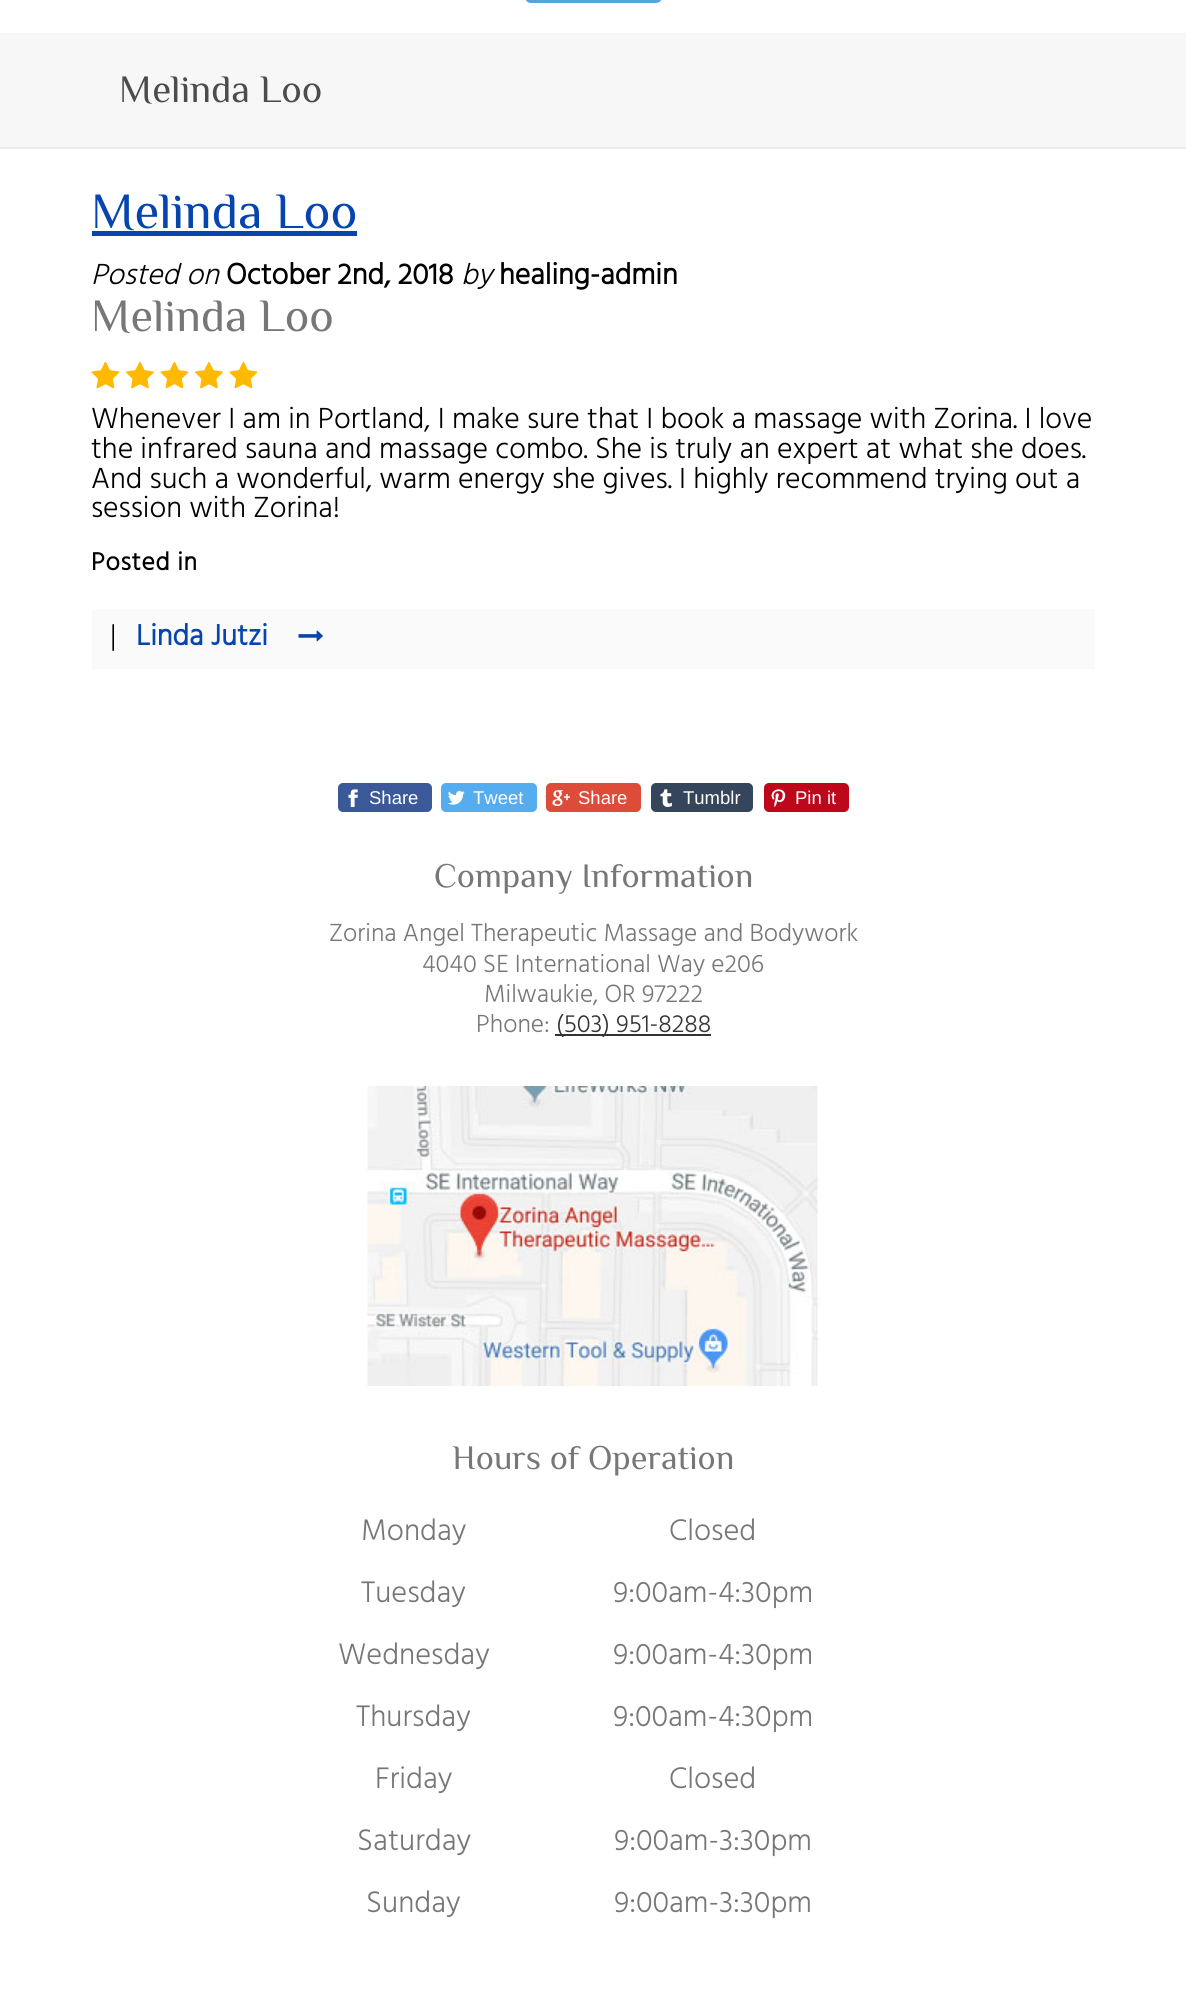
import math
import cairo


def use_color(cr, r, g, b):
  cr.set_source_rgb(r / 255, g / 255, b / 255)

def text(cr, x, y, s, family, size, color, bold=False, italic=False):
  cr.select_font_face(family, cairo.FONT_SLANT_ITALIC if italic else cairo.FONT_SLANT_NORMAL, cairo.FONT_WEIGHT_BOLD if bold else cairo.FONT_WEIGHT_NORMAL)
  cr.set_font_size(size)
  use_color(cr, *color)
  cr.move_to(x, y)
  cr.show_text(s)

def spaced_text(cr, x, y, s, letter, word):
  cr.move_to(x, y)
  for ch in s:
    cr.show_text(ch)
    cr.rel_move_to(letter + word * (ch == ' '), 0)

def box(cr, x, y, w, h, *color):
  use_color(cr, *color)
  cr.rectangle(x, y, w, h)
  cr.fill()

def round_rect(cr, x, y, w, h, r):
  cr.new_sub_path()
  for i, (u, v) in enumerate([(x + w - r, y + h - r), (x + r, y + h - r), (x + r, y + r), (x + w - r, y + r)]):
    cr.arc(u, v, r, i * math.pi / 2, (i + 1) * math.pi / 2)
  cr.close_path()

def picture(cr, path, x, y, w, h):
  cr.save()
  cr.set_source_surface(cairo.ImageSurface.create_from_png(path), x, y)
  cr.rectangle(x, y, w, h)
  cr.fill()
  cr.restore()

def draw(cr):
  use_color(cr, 255, 255, 255)
  cr.paint()
  use_color(cr, 85, 164, 218)
  round_rect(cr, 525, -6, 137, 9, 6)
  cr.fill()
  box(cr, 0, 33, 1186, 114, 247, 247, 247)
  box(cr, 0, 147, 1186, 2, 234, 234, 234)
  box(cr, 92, 231, 265, 5, 6, 69, 173)
  picture(cr, "img_01.png", 91, 361, 29, 28)
  picture(cr, "img_02.png", 126, 361, 28, 28)
  picture(cr, "img_01.png", 160, 361, 29, 28)
  picture(cr, "img_02.png", 195, 361, 28, 28)
  picture(cr, "img_01.png", 229, 361, 29, 28)
  box(cr, 92, 609, 1003, 60, 250, 250, 250)
  picture(cr, "img_03.png", 298, 630, 25, 12)
  use_color(cr, 59, 89, 152)
  round_rect(cr, 338, 783, 94, 29, 5)
  cr.fill()
  picture(cr, "img_04.png", 348, 789, 10, 18)
  use_color(cr, 85, 172, 238)
  round_rect(cr, 441, 783, 96, 29, 5)
  cr.fill()
  picture(cr, "img_05.png", 448, 790, 17, 15)
  use_color(cr, 221, 75, 57)
  round_rect(cr, 546, 783, 95, 29, 5)
  cr.fill()
  picture(cr, "img_06.png", 552, 790, 18, 16)
  use_color(cr, 53, 70, 92)
  round_rect(cr, 651, 783, 102, 29, 5)
  cr.fill()
  picture(cr, "img_07.png", 660, 789, 12, 18)
  use_color(cr, 189, 8, 28)
  round_rect(cr, 764, 783, 85, 29, 5)
  cr.fill()
  picture(cr, "img_08.png", 771, 789, 15, 18)
  box(cr, 555, 1034, 156, 2, 51, 51, 51)
  picture(cr, "img_09.png", 367, 1086, 451, 300)
  text(cr, 119, 102, "Melinda Loo", "Philosopher", 38.75, (76, 76, 76))
  text(cr, 91, 228, "Melinda Loo", "Philosopher", 50.75, (6, 69, 173))
  text(cr, 91, 284, "Posted on", "Hind Light", 29.85, (0, 0, 0), italic=True)
  text(cr, 226, 284, "October 2nd, 2018", "Hind", 29.85, (0, 0, 0), bold=True)
  text(cr, 461, 284, "by", "Hind Light", 29.85, (0, 0, 0), italic=True)
  text(cr, 499, 284, "healing-admin", "Hind", 29.85, (0, 0, 0), bold=True)
  text(cr, 91, 331, "Melinda Loo", "Philosopher", 46.25, (119, 119, 119))
  text(cr, 91, 428, "Whenever I am in Portland, I make sure that I book a massage with Zorina. I love", "Hind Light", 29.85, (0, 0, 0))
  text(cr, 91, 458, "the infrared sauna and massage combo. She is truly an expert at what she does.", "Hind Light", 29.85, (0, 0, 0))
  text(cr, 91, 488, "And such a wonderful, warm energy she gives. I highly recommend trying out a", "Hind Light", 29.85, (0, 0, 0))
  text(cr, 91, 517, "session with Zorina!", "Hind Light", 29.85, (0, 0, 0))
  cr.select_font_face("Hind", cairo.FONT_SLANT_NORMAL, cairo.FONT_WEIGHT_BOLD)
  cr.set_font_size(25.4)
  spaced_text(cr, 91, 570, "Posted in", 0.75, 0)
  text(cr, 110, 645, "|", "Hind Light", 29.85, (0, 0, 0))
  text(cr, 136, 645, "Linda Jutzi", "Hind", 29.85, (6, 69, 173), bold=True)
  text(cr, 369, 804, "Share", "Liberation Sans", 18.5, (255, 255, 255))
  text(cr, 473, 804, "Tweet", "Liberation Sans", 18.5, (255, 255, 255))
  text(cr, 578, 804, "Share", "Liberation Sans", 18.5, (255, 255, 255))
  text(cr, 683, 804, "Tumblr", "Liberation Sans", 18.5, (255, 255, 255))
  text(cr, 795, 804, "Pin it", "Liberation Sans", 18.5, (255, 255, 255))
  text(cr, 434, 887, "Company Information", "Philosopher", 34.25, (119, 119, 119))
  text(cr, 329, 941, "Zorina Angel Therapeutic Massage and Bodywork", "Hind Light", 25.4, (119, 119, 119))
  text(cr, 422, 972, "4040 SE International Way e206", "Hind Light", 25.4, (119, 119, 119))
  text(cr, 484, 1002, "Milwaukie, OR 97222", "Hind Light", 25.4, (119, 119, 119))
  text(cr, 476, 1032, "Phone:", "Hind Light", 25.4, (119, 119, 119))
  text(cr, 556, 1032, "(503) 951-8288", "Hind Light", 25.4, (51, 51, 51))
  text(cr, 452, 1469, "Hours of Operation", "Philosopher", 34.25, (119, 119, 119))
  text(cr, 361, 1540, "Monday", "Hind Light", 30.5, (119, 119, 119))
  text(cr, 669, 1540, "Closed", "Hind Light", 30.5, (119, 119, 119))
  text(cr, 361, 1602, "Tuesday", "Hind Light", 30.5, (119, 119, 119))
  text(cr, 613, 1602, "9:00am-4:30pm", "Hind Light", 30.5, (119, 119, 119))
  text(cr, 338, 1664, "Wednesday", "Hind Light", 30.5, (119, 119, 119))
  text(cr, 613, 1664, "9:00am-4:30pm", "Hind Light", 30.5, (119, 119, 119))
  text(cr, 356, 1726, "Thursday", "Hind Light", 30.5, (119, 119, 119))
  text(cr, 613, 1726, "9:00am-4:30pm", "Hind Light", 30.5, (119, 119, 119))
  text(cr, 375, 1788, "Friday", "Hind Light", 30.5, (119, 119, 119))
  text(cr, 669, 1788, "Closed", "Hind Light", 30.5, (119, 119, 119))
  text(cr, 357, 1850, "Saturday", "Hind Light", 30.5, (119, 119, 119))
  text(cr, 614, 1850, "9:00am-3:30pm", "Hind Light", 30.5, (119, 119, 119))
  text(cr, 366, 1912, "Sunday", "Hind Light", 30.5, (119, 119, 119))
  text(cr, 614, 1912, "9:00am-3:30pm", "Hind Light", 30.5, (119, 119, 119))


surface = cairo.ImageSurface(cairo.FORMAT_RGB24, 1186, 1991)
cr = cairo.Context(surface)
options = cairo.FontOptions()
options.set_hint_metrics(cairo.HINT_METRICS_OFF)
options.set_hint_style(cairo.HINT_STYLE_NONE)
cr.set_font_options(options)
cr.set_miter_limit(4)
draw(cr)
surface.write_to_png("out.png")
